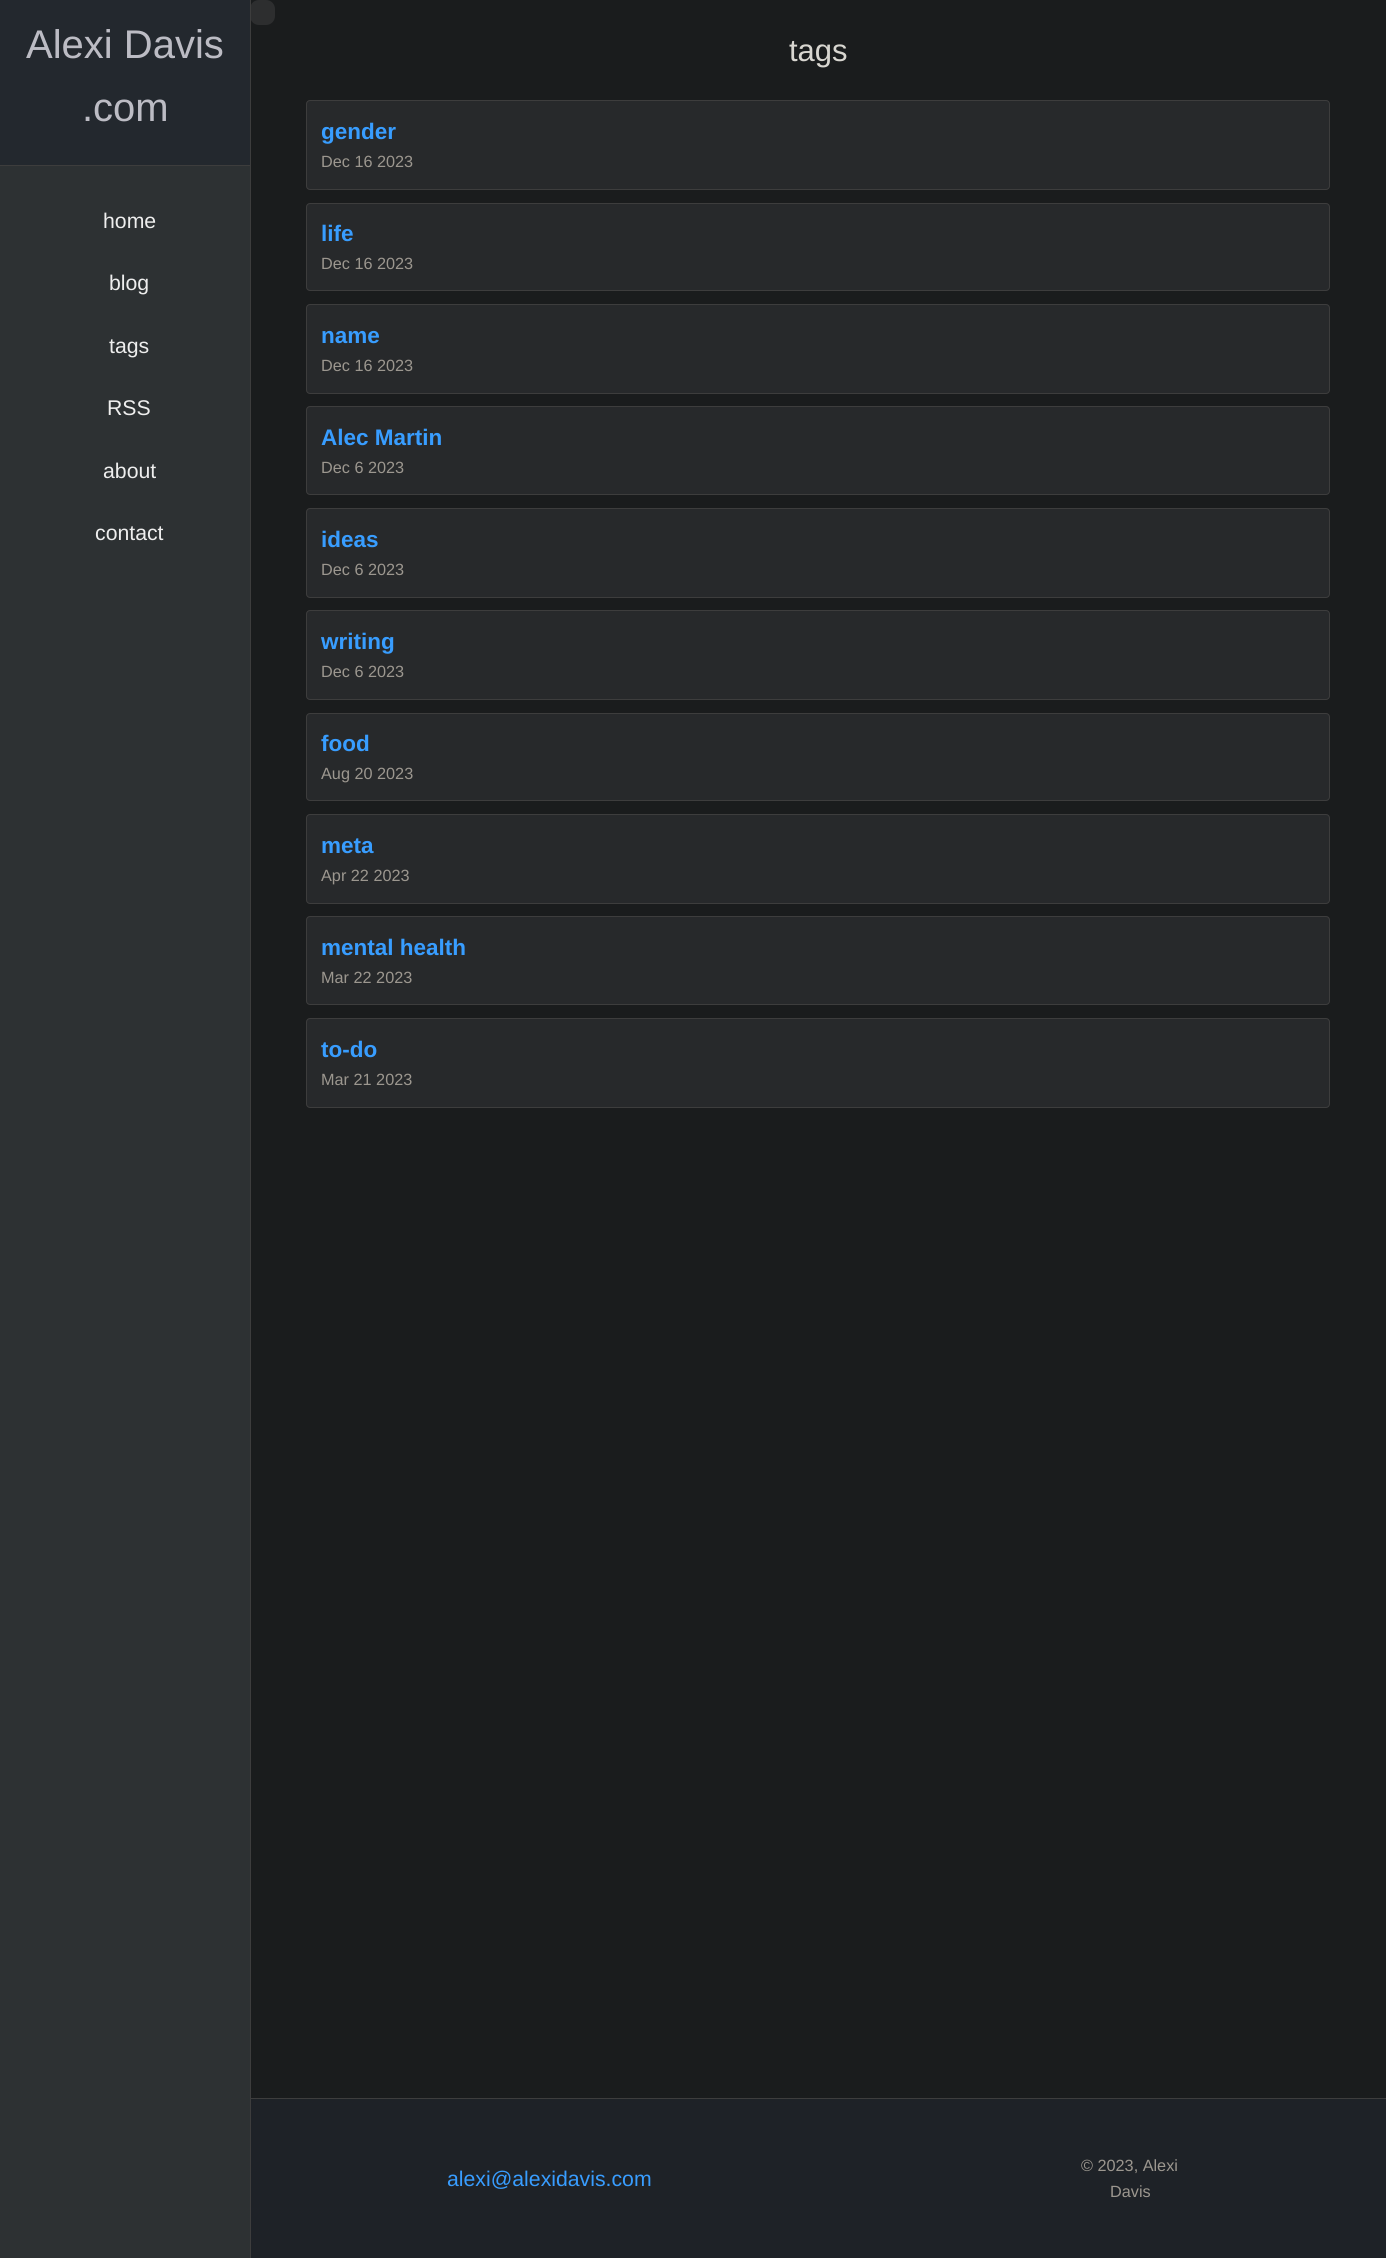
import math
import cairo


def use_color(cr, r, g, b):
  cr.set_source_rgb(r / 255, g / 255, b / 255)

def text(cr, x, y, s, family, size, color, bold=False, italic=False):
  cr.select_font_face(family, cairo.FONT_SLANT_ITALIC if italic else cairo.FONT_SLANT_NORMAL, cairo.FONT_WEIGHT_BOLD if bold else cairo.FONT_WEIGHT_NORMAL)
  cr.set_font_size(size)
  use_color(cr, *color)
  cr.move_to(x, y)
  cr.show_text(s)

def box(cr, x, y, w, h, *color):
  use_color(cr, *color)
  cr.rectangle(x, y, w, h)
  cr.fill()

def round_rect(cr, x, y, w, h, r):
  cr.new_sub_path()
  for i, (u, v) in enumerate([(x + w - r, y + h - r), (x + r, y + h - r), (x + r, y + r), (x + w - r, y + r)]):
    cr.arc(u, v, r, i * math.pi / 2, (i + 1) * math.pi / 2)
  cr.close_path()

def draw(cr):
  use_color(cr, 26, 28, 29)
  cr.paint()
  box(cr, 0, 166, 250, 2092, 45, 49, 51)
  use_color(cr, 45, 46, 47)
  round_rect(cr, 250, 0, 25, 25, 9)
  cr.fill()
  box(cr, 250, 2098, 1136, 1, 61, 61, 61)
  box(cr, 250, 0, 1, 2258, 61, 61, 61)
  box(cr, 0, 0, 250, 165, 35, 40, 46)
  box(cr, 0, 165, 250, 1, 61, 61, 61)
  use_color(cr, 39, 41, 43)
  round_rect(cr, 306.5, 100.5, 1023, 89, 3.5)
  cr.fill_preserve()
  use_color(cr, 61, 61, 61)
  cr.set_line_width(1)
  cr.stroke()
  use_color(cr, 39, 41, 43)
  round_rect(cr, 306.5, 203.5, 1023, 87, 3.5)
  cr.fill_preserve()
  use_color(cr, 61, 61, 61)
  cr.stroke()
  use_color(cr, 39, 41, 43)
  round_rect(cr, 306.5, 304.5, 1023, 89, 3.5)
  cr.fill_preserve()
  use_color(cr, 61, 61, 61)
  cr.stroke()
  use_color(cr, 39, 41, 43)
  round_rect(cr, 306.5, 406.5, 1023, 88, 3.5)
  cr.fill_preserve()
  use_color(cr, 61, 61, 61)
  cr.stroke()
  use_color(cr, 39, 41, 43)
  round_rect(cr, 306.5, 508.5, 1023, 89, 3.5)
  cr.fill_preserve()
  use_color(cr, 61, 61, 61)
  cr.stroke()
  use_color(cr, 39, 41, 43)
  round_rect(cr, 306.5, 610.5, 1023, 89, 3.5)
  cr.fill_preserve()
  use_color(cr, 61, 61, 61)
  cr.stroke()
  use_color(cr, 39, 41, 43)
  round_rect(cr, 306.5, 713.5, 1023, 87, 3.5)
  cr.fill_preserve()
  use_color(cr, 61, 61, 61)
  cr.stroke()
  use_color(cr, 39, 41, 43)
  round_rect(cr, 306.5, 814.5, 1023, 89, 3.5)
  cr.fill_preserve()
  use_color(cr, 61, 61, 61)
  cr.stroke()
  use_color(cr, 39, 41, 43)
  round_rect(cr, 306.5, 916.5, 1023, 88, 3.5)
  cr.fill_preserve()
  use_color(cr, 61, 61, 61)
  cr.stroke()
  use_color(cr, 39, 41, 43)
  round_rect(cr, 306.5, 1018.5, 1023, 89, 3.5)
  cr.fill_preserve()
  use_color(cr, 61, 61, 61)
  cr.stroke()
  box(cr, 251, 2099, 1135, 159, 30, 34, 39)
  text(cr, 26, 58, "Alexi Davis", "Liberation Sans", 40, (188, 188, 196))
  text(cr, 82, 121, ".com", "Liberation Sans", 40, (188, 188, 196))
  text(cr, 103, 228, "home", "Liberation Sans", 21.25, (238, 238, 238))
  text(cr, 109, 290, "blog", "Liberation Sans", 21.25, (238, 238, 238))
  text(cr, 109, 353, "tags", "Liberation Sans", 21.25, (238, 238, 238))
  text(cr, 107, 415, "RSS", "Liberation Sans", 21.25, (238, 238, 238))
  text(cr, 103, 478, "about", "Liberation Sans", 21.25, (238, 238, 238))
  text(cr, 95, 540, "contact", "Liberation Sans", 21.25, (238, 238, 238))
  text(cr, 789, 61, "tags", "Liberation Sans", 31, (216, 214, 208))
  text(cr, 321, 139, "gender", "Liberation Sans", 22.5, (56, 157, 255), bold=True)
  text(cr, 321, 167, "Dec 16 2023", "Liberation Sans", 16.25, (156, 151, 143))
  text(cr, 321, 241, "life", "Liberation Sans", 22.5, (56, 157, 255), bold=True)
  text(cr, 321, 269, "Dec 16 2023", "Liberation Sans", 16.25, (156, 151, 143))
  text(cr, 321, 343, "name", "Liberation Sans", 22.5, (56, 157, 255), bold=True)
  text(cr, 321, 371, "Dec 16 2023", "Liberation Sans", 16.25, (156, 151, 143))
  text(cr, 321, 445, "Alec Martin", "Liberation Sans", 22.5, (56, 157, 255), bold=True)
  text(cr, 321, 473, "Dec 6 2023", "Liberation Sans", 16.25, (156, 151, 143))
  text(cr, 321, 547, "ideas", "Liberation Sans", 22.5, (56, 157, 255), bold=True)
  text(cr, 321, 575, "Dec 6 2023", "Liberation Sans", 16.25, (156, 151, 143))
  text(cr, 321, 649, "writing", "Liberation Sans", 22.5, (56, 157, 255), bold=True)
  text(cr, 321, 677, "Dec 6 2023", "Liberation Sans", 16.25, (156, 151, 143))
  text(cr, 321, 751, "food", "Liberation Sans", 22.5, (56, 157, 255), bold=True)
  text(cr, 321, 779, "Aug 20 2023", "Liberation Sans", 16.25, (156, 151, 143))
  text(cr, 321, 853, "meta", "Liberation Sans", 22.5, (56, 157, 255), bold=True)
  text(cr, 321, 881, "Apr 22 2023", "Liberation Sans", 16.25, (156, 151, 143))
  text(cr, 321, 955, "mental health", "Liberation Sans", 22.5, (56, 157, 255), bold=True)
  text(cr, 321, 983, "Mar 22 2023", "Liberation Sans", 16.25, (156, 151, 143))
  text(cr, 321, 1057, "to-do", "Liberation Sans", 22.5, (56, 157, 255), bold=True)
  text(cr, 321, 1085, "Mar 21 2023", "Liberation Sans", 16.25, (156, 151, 143))
  text(cr, 447, 2186, "alexi@alexidavis.com", "Liberation Sans", 21.25, (56, 157, 255))
  text(cr, 1081, 2171, "© 2023, Alexi", "Liberation Sans", 16.25, (156, 151, 143))
  text(cr, 1110, 2197, "Davis", "Liberation Sans", 16.25, (156, 151, 143))


surface = cairo.ImageSurface(cairo.FORMAT_RGB24, 1386, 2258)
cr = cairo.Context(surface)
options = cairo.FontOptions()
options.set_hint_metrics(cairo.HINT_METRICS_OFF)
options.set_hint_style(cairo.HINT_STYLE_NONE)
cr.set_font_options(options)
cr.set_miter_limit(4)
draw(cr)
surface.write_to_png("out.png")
